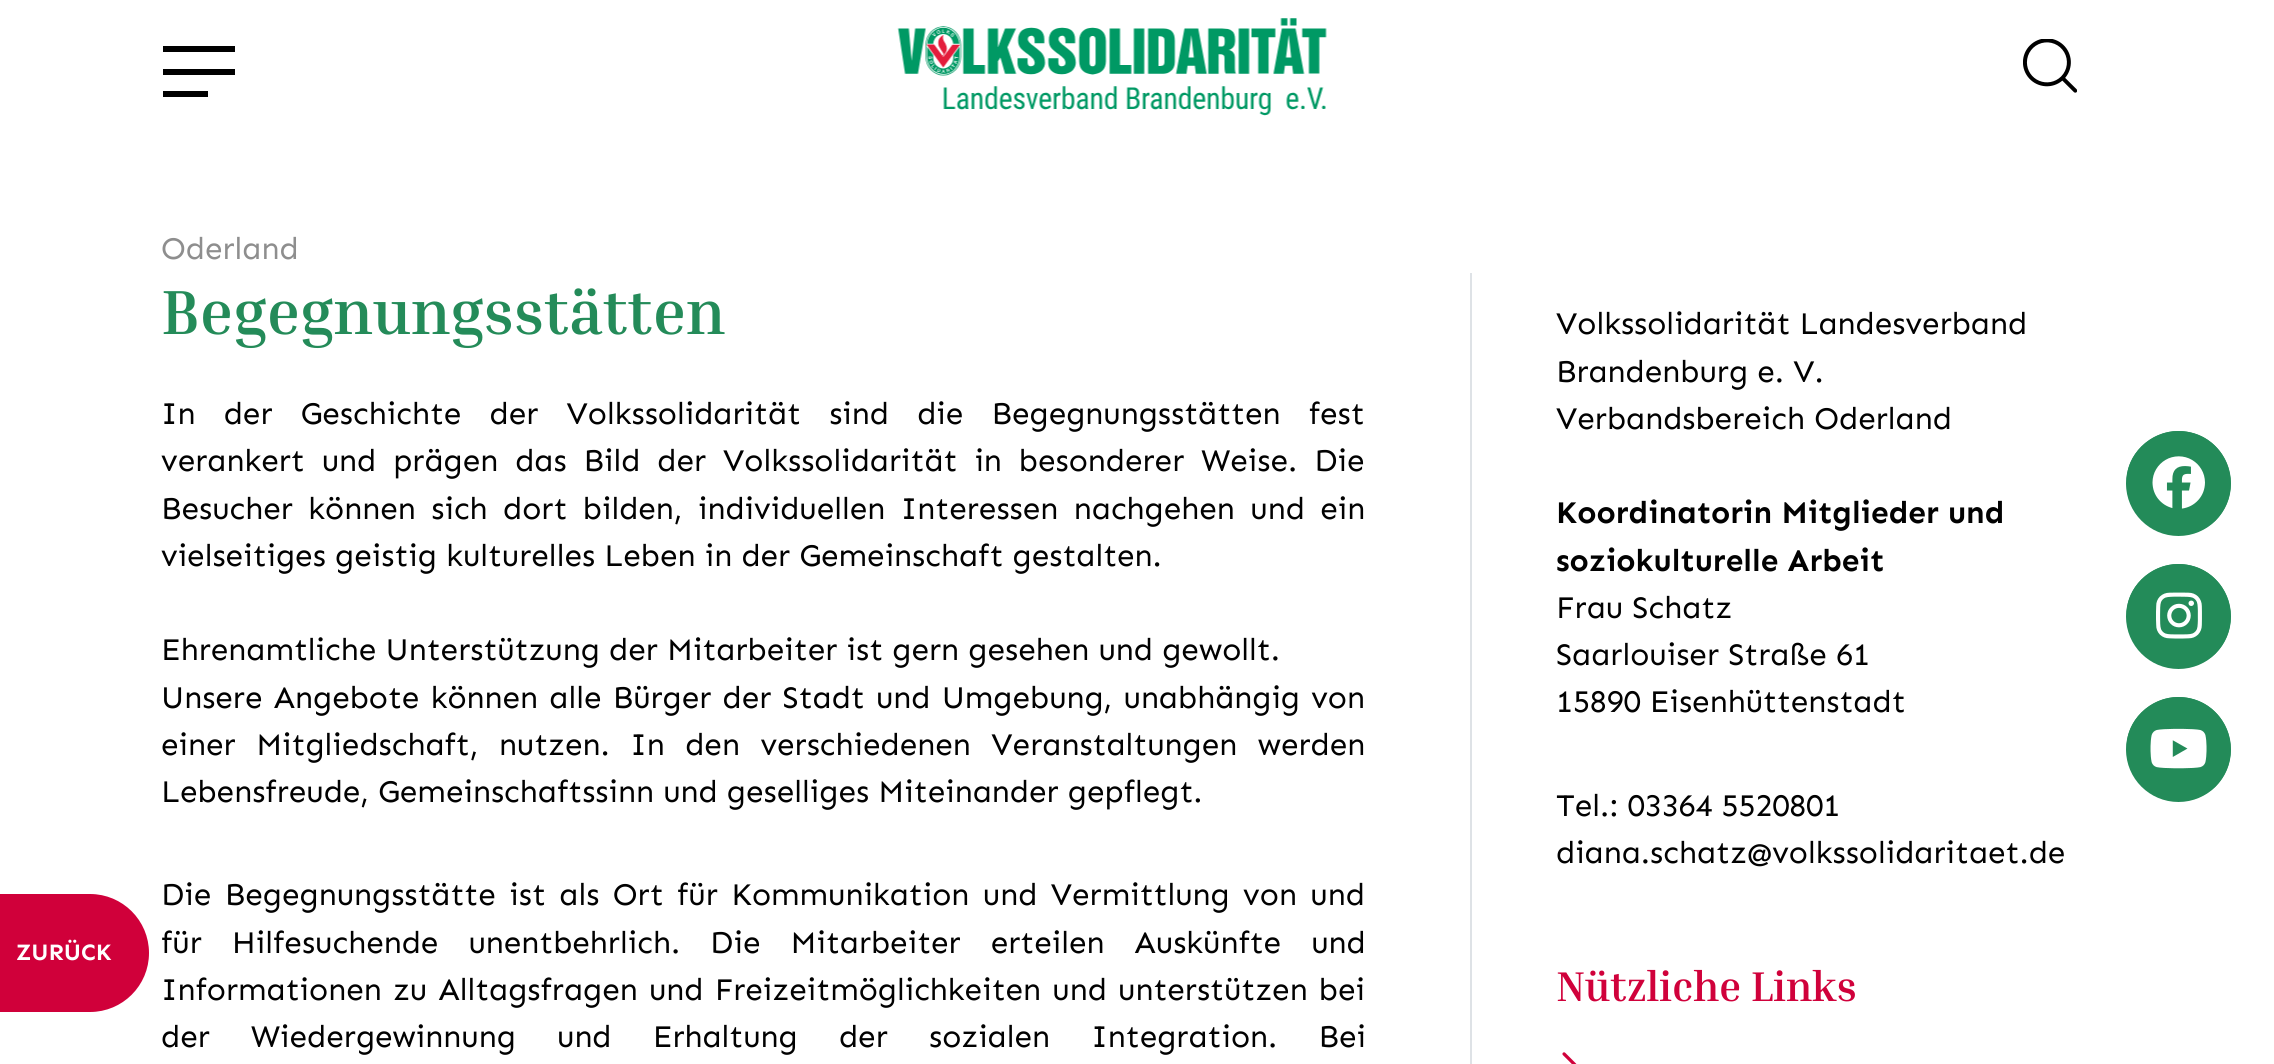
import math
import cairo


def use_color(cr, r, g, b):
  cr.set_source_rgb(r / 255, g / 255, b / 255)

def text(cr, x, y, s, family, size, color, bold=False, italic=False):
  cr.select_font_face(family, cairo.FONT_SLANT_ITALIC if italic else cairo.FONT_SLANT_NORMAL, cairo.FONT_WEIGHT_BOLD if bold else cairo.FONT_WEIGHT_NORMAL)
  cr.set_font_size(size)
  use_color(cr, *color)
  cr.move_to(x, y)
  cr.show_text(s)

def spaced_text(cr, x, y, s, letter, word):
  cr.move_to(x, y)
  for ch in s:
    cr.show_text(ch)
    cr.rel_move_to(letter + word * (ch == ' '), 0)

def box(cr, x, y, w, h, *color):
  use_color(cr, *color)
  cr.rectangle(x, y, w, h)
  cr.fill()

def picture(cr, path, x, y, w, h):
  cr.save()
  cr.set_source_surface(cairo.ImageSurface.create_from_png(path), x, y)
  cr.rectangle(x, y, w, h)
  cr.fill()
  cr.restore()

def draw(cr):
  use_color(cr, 255, 255, 255)
  cr.paint()
  box(cr, 163, 46, 72, 6, 0, 0, 0)
  box(cr, 163, 69, 72, 6, 0, 0, 0)
  box(cr, 163, 91, 45, 6, 0, 0, 0)
  picture(cr, "img_01.png", 897, 18, 430, 98)
  picture(cr, "img_02.png", 2023, 39, 54, 54)
  use_color(cr, 208, 0, 58)
  cr.new_path()
  cr.move_to(1, 895)
  cr.line_to(90, 895)
  cr.curve_to(122, 895, 148, 921, 148, 953)
  cr.curve_to(148, 985, 122, 1011, 90, 1011)
  cr.line_to(1, 1011)
  cr.close_path()
  cr.fill_preserve()
  cr.stroke()
  box(cr, 1470, 273, 2, 791, 222, 226, 230)
  picture(cr, "img_03.png", 1562, 1052, 15, 12)
  use_color(cr, 35, 139, 89)
  cr.arc(2178.5, 483.5, 52.5, 0, 2 * math.pi)
  cr.fill()
  cr.new_path()
  cr.move_to(2179, 535)
  cr.curve_to(2147, 534, 2123, 506, 2127, 475)
  cr.curve_to(2130, 450, 2154, 431, 2178, 431)
  cr.curve_to(2226, 431, 2248, 488, 2215, 521)
  cr.curve_to(2205, 530, 2192, 535, 2179, 535)
  cr.close_path()
  cr.fill()
  picture(cr, "img_04.png", 2152, 456, 53, 53)
  cr.arc(2178.5, 616.5, 52.5, 0, 2 * math.pi)
  cr.fill()
  cr.new_path()
  cr.move_to(2179, 668)
  cr.curve_to(2147, 667, 2123, 639, 2127, 608)
  cr.curve_to(2130, 583, 2154, 564, 2178, 564)
  cr.curve_to(2226, 564, 2248, 621, 2215, 654)
  cr.curve_to(2205, 663, 2192, 668, 2179, 668)
  cr.close_path()
  cr.fill()
  picture(cr, "img_05.png", 2156, 592, 46, 47)
  cr.arc(2178.5, 749.5, 52.5, 0, 2 * math.pi)
  cr.fill()
  cr.new_path()
  cr.move_to(2179, 801)
  cr.curve_to(2147, 800, 2123, 772, 2127, 741)
  cr.curve_to(2130, 716, 2154, 697, 2178, 697)
  cr.curve_to(2226, 697, 2248, 754, 2215, 787)
  cr.curve_to(2205, 796, 2192, 801, 2179, 801)
  cr.close_path()
  cr.fill()
  picture(cr, "img_06.png", 2150, 728, 57, 41)
  text(cr, 16, 960, "ZURÜCK", "Sen", 23.5, (255, 255, 255), bold=True)
  text(cr, 161, 259, "Oderland", "Sen", 31.5, (142, 142, 142))
  text(cr, 161, 334, "Begegnungsstätten", "Inria Serif", 63, (36, 139, 89), bold=True)
  cr.select_font_face("Sen")
  cr.set_font_size(31.5)
  use_color(cr, 1, 1, 1)
  spaced_text(cr, 161, 424, "In der Geschichte der Volkssolidarität sind die Begegnungsstätten fest", 0, 19)
  spaced_text(cr, 161, 471, "verankert und prägen das Bild der Volkssolidarität in besonderer Weise. Die", 0, 7.75)
  spaced_text(cr, 161, 519, "Besucher können sich dort bilden, individuellen Interessen nachgehen und ein", 0, 6.25)
  text(cr, 161, 566, "vielseitiges geistig kulturelles Leben in der Gemeinschaft gestalten.", "Sen", 31.5, (1, 1, 1))
  text(cr, 161, 660, "Ehrenamtliche Unterstützung der Mitarbeiter ist gern gesehen und gewollt.", "Sen", 31.5, (1, 1, 1))
  spaced_text(cr, 161, 708, "Unsere Angebote können alle Bürger der Stadt und Umgebung, unabhängig von", 0, 2)
  spaced_text(cr, 161, 755, "einer Mitgliedschaft, nutzen. In den verschiedenen Veranstaltungen werden", 0, 11.25)
  text(cr, 161, 802, "Lebensfreude, Gemeinschaftssinn und geselliges Miteinander gepflegt.", "Sen", 31.5, (1, 1, 1))
  spaced_text(cr, 161, 905, "Die Begegnungsstätte ist als Ort für Kommunikation und Vermittlung von und", 0, 4.25)
  spaced_text(cr, 161, 953, "für Hilfesuchende unentbehrlich. Die Mitarbeiter erteilen Auskünfte und", 0, 20.75)
  spaced_text(cr, 161, 1000, "Informationen zu Alltagsfragen und Freizeitmöglichkeiten und unterstützen bei", 0, 2)
  spaced_text(cr, 161, 1047, "der Wiedergewinnung und Erhaltung der sozialen Integration. Bei", 0, 32)
  text(cr, 1556, 334, "Volkssolidarität Landesverband", "Sen", 31.5, (1, 1, 1))
  text(cr, 1556, 382, "Brandenburg e. V.", "Sen", 31.5, (1, 1, 1))
  text(cr, 1556, 429, "Verbandsbereich Oderland", "Sen", 31.5, (1, 1, 1))
  text(cr, 1556, 523, "Koordinatorin Mitglieder und", "Sen", 31.5, (1, 1, 1), bold=True)
  text(cr, 1556, 571, "soziokulturelle Arbeit", "Sen", 31.5, (1, 1, 1), bold=True)
  text(cr, 1556, 618, "Frau Schatz", "Sen", 31.5, (1, 1, 1))
  text(cr, 1556, 665, "Saarlouiser Straße 61", "Sen", 31.5, (1, 1, 1))
  text(cr, 1556, 712, "15890 Eisenhüttenstadt", "Sen", 31.5, (1, 1, 1))
  text(cr, 1556, 816, "Tel.: 03364 5520801", "Sen", 31.5, (1, 1, 1))
  text(cr, 1556, 863, "diana.schatz@volkssolidaritaet.de", "Sen", 31.5, (1, 1, 1))
  text(cr, 1556, 1001, "Nützliche Links", "Inria Serif", 42, (208, 1, 59), bold=True)


surface = cairo.ImageSurface(cairo.FORMAT_RGB24, 2274, 1064)
cr = cairo.Context(surface)
options = cairo.FontOptions()
options.set_hint_metrics(cairo.HINT_METRICS_OFF)
options.set_hint_style(cairo.HINT_STYLE_NONE)
cr.set_font_options(options)
cr.set_miter_limit(4)
draw(cr)
surface.write_to_png("out.png")
